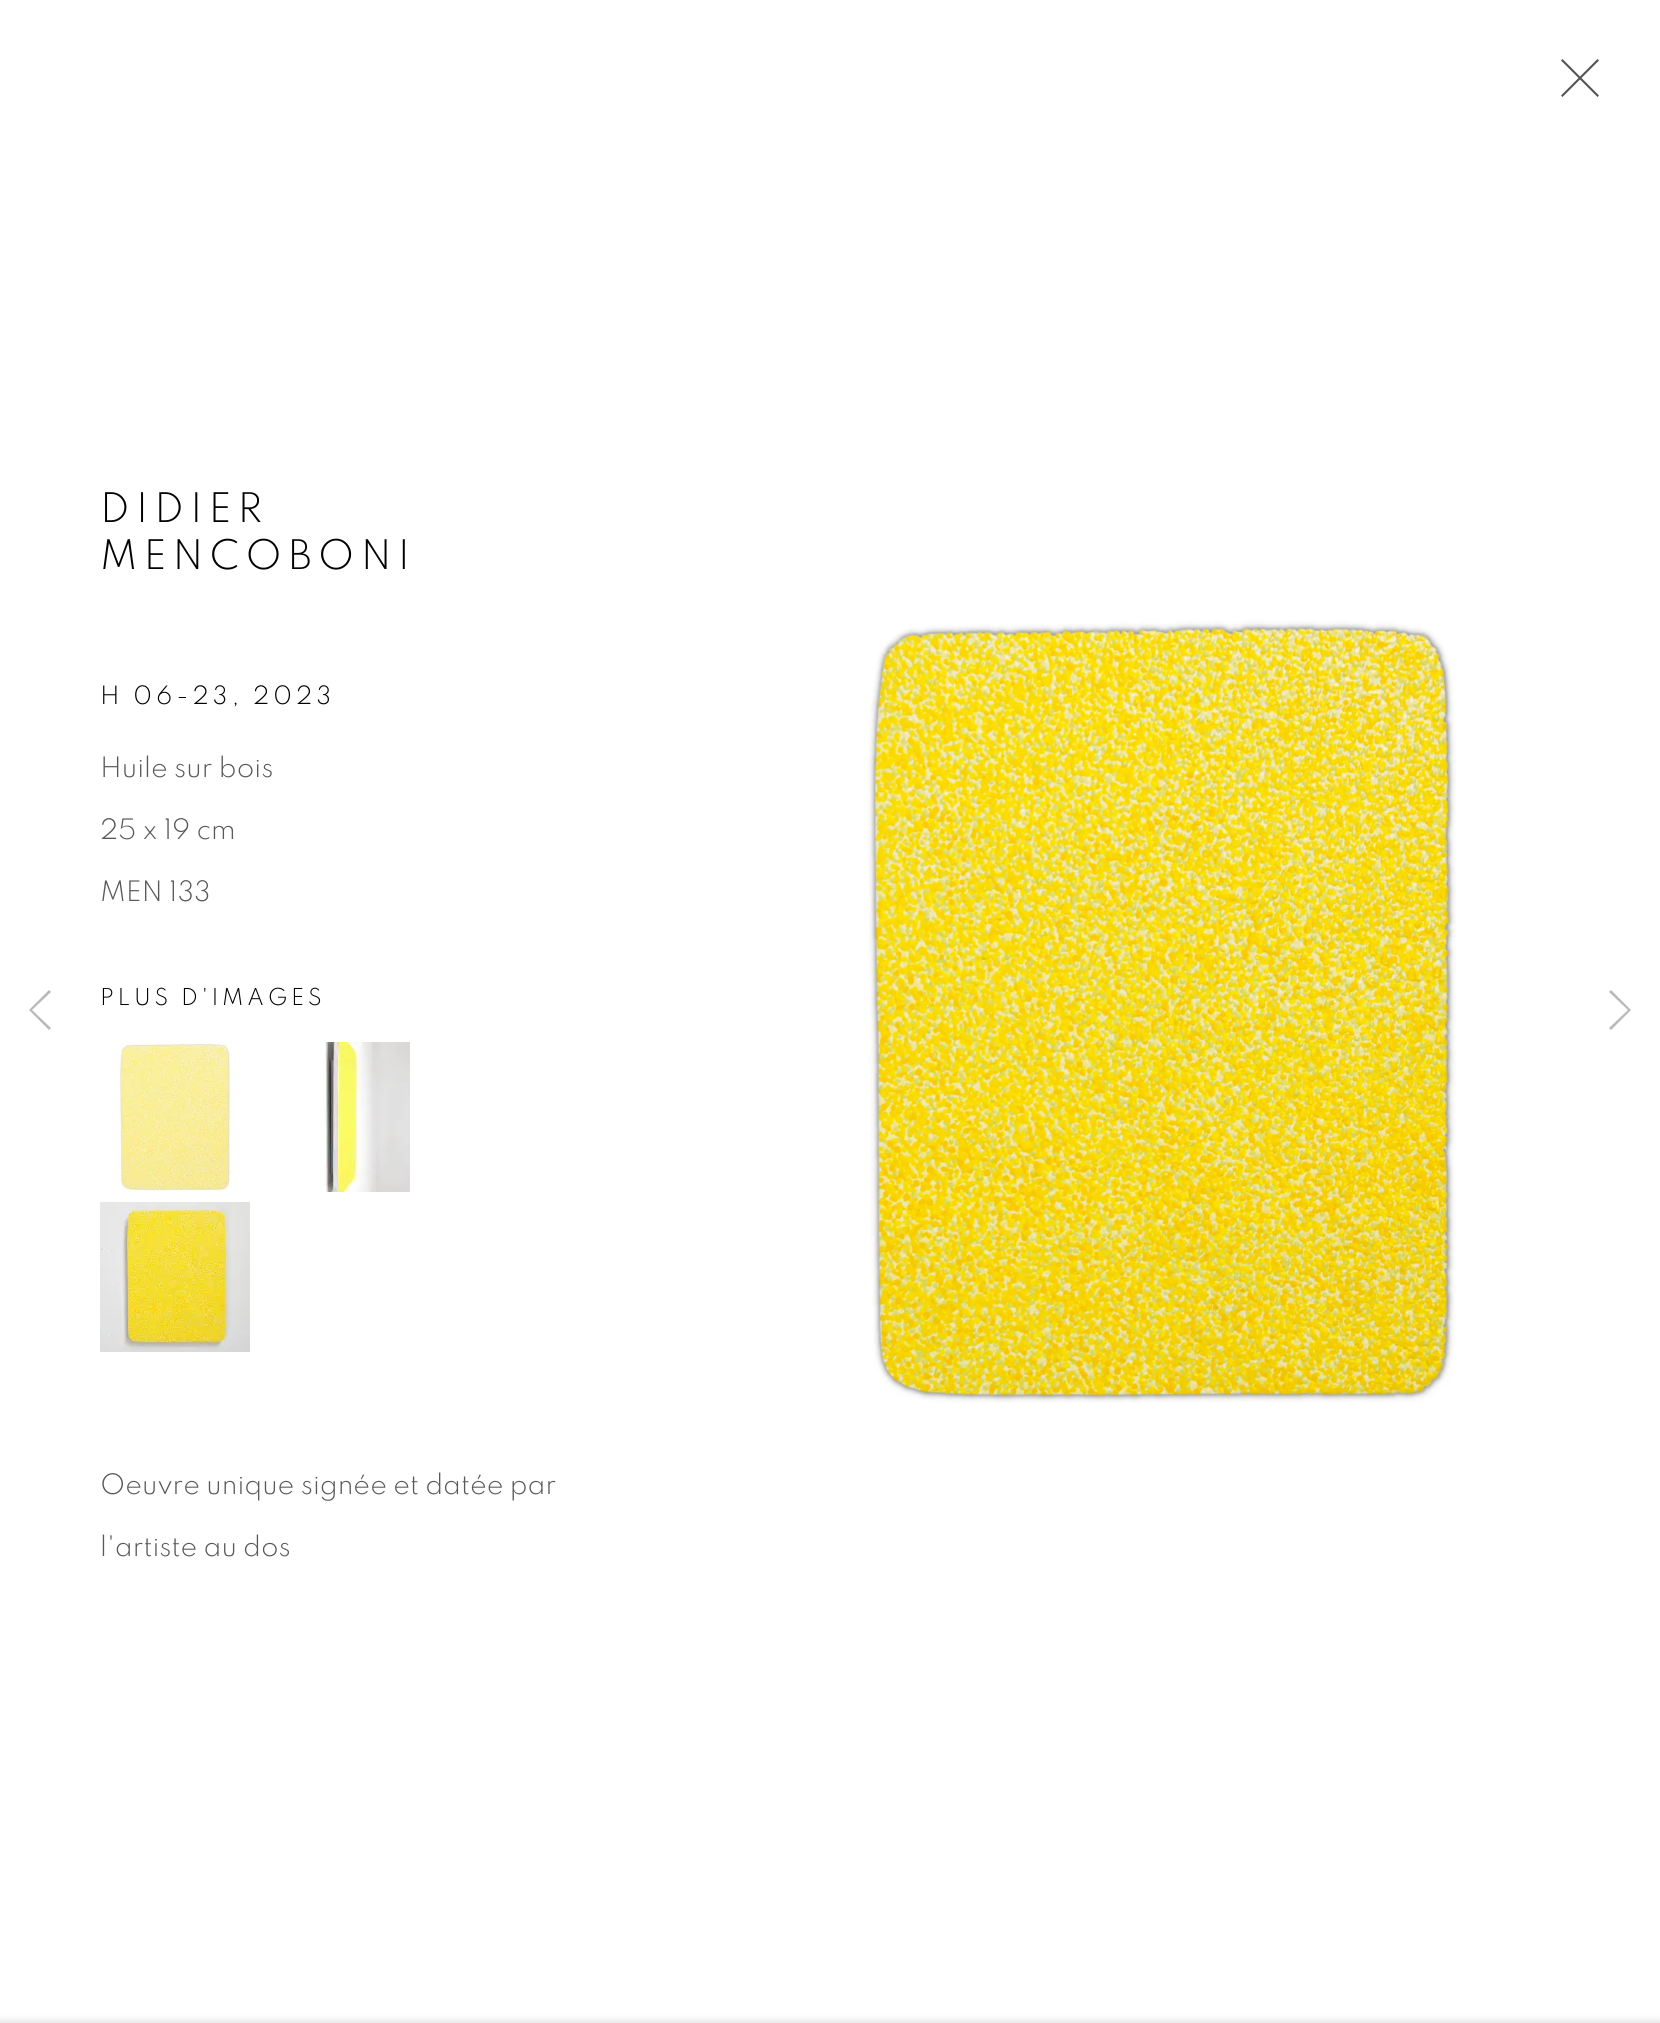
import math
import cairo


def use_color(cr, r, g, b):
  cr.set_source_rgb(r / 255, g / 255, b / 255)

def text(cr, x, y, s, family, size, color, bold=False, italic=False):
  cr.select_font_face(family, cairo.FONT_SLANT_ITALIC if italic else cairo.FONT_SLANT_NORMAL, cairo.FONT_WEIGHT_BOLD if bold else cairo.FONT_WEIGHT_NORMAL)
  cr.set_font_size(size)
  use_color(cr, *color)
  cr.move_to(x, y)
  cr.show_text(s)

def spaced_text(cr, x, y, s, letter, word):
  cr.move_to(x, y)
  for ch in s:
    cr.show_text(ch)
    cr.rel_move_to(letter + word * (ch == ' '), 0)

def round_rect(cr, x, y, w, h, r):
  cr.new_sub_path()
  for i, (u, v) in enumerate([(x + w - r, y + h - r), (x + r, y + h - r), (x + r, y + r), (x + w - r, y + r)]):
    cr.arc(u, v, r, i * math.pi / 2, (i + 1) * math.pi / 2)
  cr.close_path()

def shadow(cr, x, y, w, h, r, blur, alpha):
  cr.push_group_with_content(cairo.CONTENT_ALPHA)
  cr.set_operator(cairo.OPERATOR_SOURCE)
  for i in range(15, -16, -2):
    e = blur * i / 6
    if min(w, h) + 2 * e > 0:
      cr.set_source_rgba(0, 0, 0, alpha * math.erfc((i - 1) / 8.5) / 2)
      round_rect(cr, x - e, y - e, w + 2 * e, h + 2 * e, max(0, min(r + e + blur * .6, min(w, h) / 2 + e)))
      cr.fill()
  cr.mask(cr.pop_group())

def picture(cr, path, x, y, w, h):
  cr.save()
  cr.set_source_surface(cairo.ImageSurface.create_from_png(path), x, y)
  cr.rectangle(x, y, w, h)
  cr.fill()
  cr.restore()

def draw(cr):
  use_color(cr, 255, 255, 255)
  cr.paint()
  use_color(cr, 85, 85, 85)
  cr.new_path()
  cr.move_to(1599, 60.5)
  cr.line_to(1597.5, 59)
  cr.line_to(1580, 76.5)
  cr.line_to(1562.5, 59)
  cr.line_to(1561, 60.5)
  cr.line_to(1578.5, 78)
  cr.line_to(1561, 95.5)
  cr.line_to(1562.5, 97)
  cr.line_to(1580, 79.5)
  cr.line_to(1597.5, 97)
  cr.line_to(1599, 95.5)
  cr.line_to(1581.5, 78)
  cr.close_path()
  cr.fill()
  picture(cr, "img_01.png", 116, 1042, 120, 150)
  picture(cr, "img_02.png", 324, 1042, 86, 150)
  picture(cr, "img_03.png", 100, 1202, 150, 150)
  picture(cr, "img_04.png", 868, 620, 588, 783)
  use_color(cr, 185, 185, 185)
  cr.new_path()
  cr.move_to(31, 1012)
  cr.line_to(49, 1030)
  cr.line_to(51, 1028)
  cr.line_to(32, 1010)
  cr.line_to(51, 992)
  cr.line_to(49, 990)
  cr.line_to(29, 1010)
  cr.close_path()
  cr.fill()
  cr.new_path()
  cr.move_to(1631, 1010)
  cr.line_to(1611, 990)
  cr.line_to(1609, 992)
  cr.line_to(1628, 1010)
  cr.line_to(1609, 1028)
  cr.line_to(1611, 1030)
  cr.close_path()
  cr.fill()
  use_color(cr, 0, 0, 0)
  shadow(cr, 0, 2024, 1660, 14, 0, 5, 0.23)
  cr.select_font_face("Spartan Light")
  cr.set_font_size(42)
  use_color(cr, 1, 1, 1)
  spaced_text(cr, 100, 522, "DIDIER", 6.25, 0)
  spaced_text(cr, 100, 569, "MENCOBONI", 6.25, 0)
  cr.set_font_size(26)
  spaced_text(cr, 100, 704, "H 06-23, 2023", 3.9, 0)
  text(cr, 100, 777, "Huile sur bois", "Spartan Light", 29, (88, 88, 88))
  text(cr, 100, 839, "25 x 19 cm", "Spartan Light", 29, (88, 88, 88))
  text(cr, 100, 901, "MEN 133", "Spartan Light", 29, (88, 88, 88))
  cr.set_font_size(24)
  use_color(cr, 1, 1, 1)
  spaced_text(cr, 100, 1005, "PLUS D'IMAGES", 3.6, 0)
  text(cr, 100, 1494, "Oeuvre unique signée et datée par", "Spartan Light", 29, (88, 88, 88))
  text(cr, 100, 1556, "l'artiste au dos", "Spartan Light", 29, (88, 88, 88))


surface = cairo.ImageSurface(cairo.FORMAT_RGB24, 1660, 2023)
cr = cairo.Context(surface)
options = cairo.FontOptions()
options.set_hint_metrics(cairo.HINT_METRICS_OFF)
options.set_hint_style(cairo.HINT_STYLE_NONE)
cr.set_font_options(options)
cr.set_miter_limit(4)
draw(cr)
surface.write_to_png("out.png")
